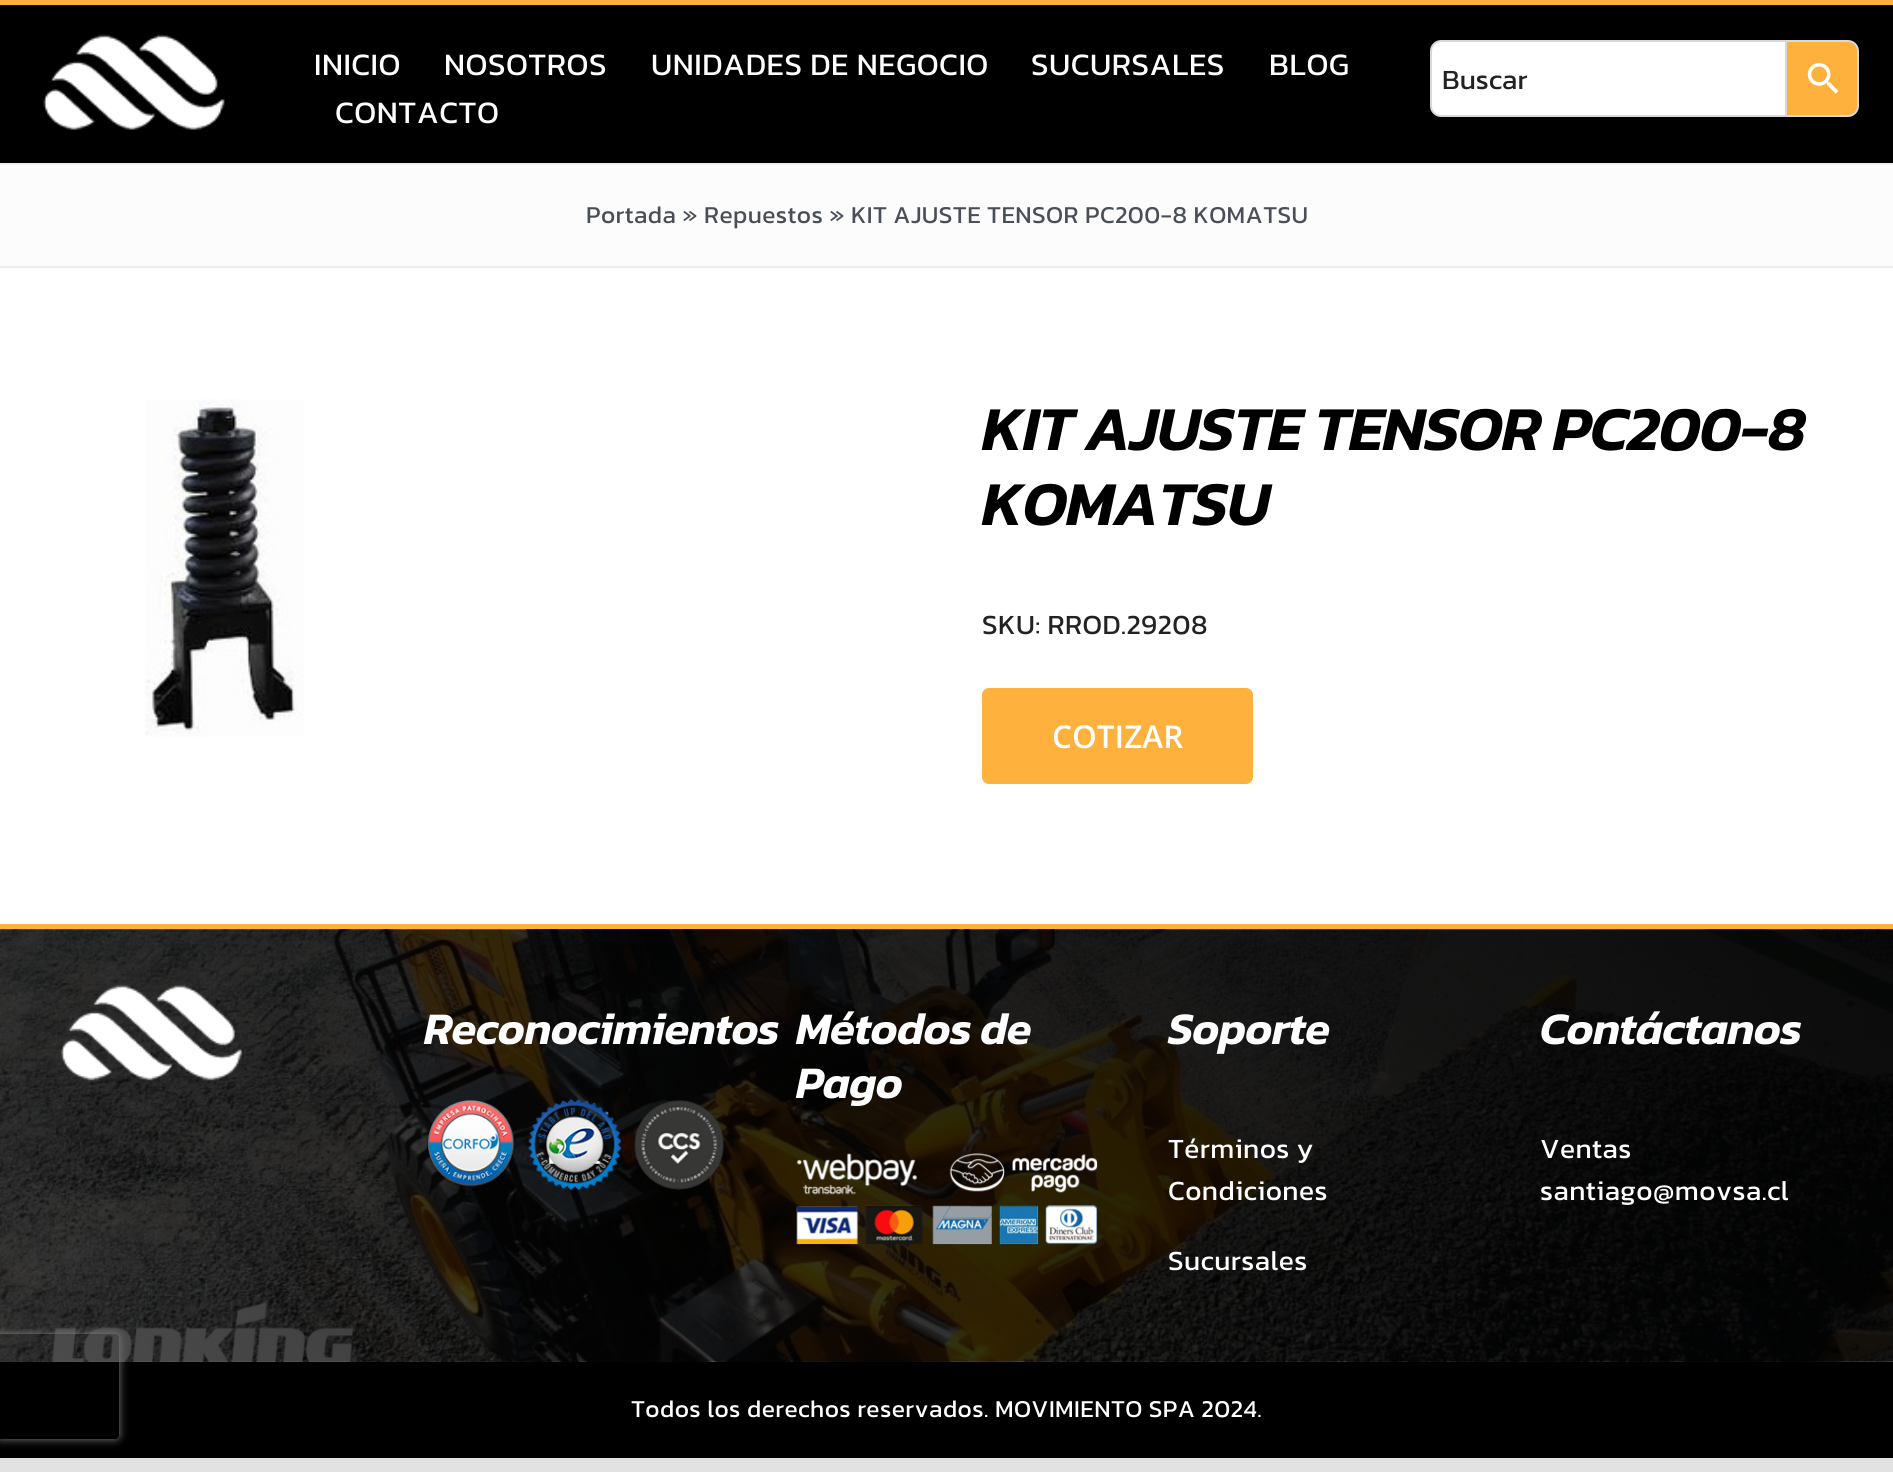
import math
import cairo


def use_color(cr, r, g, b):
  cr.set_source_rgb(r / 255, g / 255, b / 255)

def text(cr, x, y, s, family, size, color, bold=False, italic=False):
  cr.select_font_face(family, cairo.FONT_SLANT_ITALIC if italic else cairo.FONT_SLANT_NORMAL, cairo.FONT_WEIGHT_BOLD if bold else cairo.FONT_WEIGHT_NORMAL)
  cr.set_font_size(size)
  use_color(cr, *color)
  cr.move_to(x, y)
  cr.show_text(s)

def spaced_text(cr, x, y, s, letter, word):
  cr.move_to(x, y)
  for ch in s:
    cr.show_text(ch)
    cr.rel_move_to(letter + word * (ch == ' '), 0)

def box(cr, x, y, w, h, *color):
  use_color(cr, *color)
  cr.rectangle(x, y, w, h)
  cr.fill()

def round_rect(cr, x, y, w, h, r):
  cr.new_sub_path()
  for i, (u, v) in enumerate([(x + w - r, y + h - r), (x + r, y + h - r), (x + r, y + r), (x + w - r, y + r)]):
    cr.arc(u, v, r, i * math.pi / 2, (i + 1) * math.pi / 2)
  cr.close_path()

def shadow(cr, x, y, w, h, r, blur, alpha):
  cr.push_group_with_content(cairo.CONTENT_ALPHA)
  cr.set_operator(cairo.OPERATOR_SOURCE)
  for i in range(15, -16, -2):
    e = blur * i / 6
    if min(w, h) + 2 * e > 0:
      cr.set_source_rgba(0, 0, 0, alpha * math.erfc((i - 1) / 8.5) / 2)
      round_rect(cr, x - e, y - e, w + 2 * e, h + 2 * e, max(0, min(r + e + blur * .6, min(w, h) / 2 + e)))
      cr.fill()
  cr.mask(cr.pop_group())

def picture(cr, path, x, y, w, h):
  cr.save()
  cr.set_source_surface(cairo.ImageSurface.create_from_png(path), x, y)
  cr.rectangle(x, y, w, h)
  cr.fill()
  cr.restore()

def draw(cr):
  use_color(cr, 226, 226, 226)
  cr.paint()
  box(cr, 0, 1361, 1893, 97, 0, 0, 0)
  picture(cr, "img_04.png", 0, 929, 1893, 433)
  cr.save()
  cr.set_fill_rule(cairo.FILL_RULE_EVEN_ODD)
  cr.new_path()
  cr.move_to(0, 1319)
  cr.line_to(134, 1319)
  cr.line_to(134, 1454)
  cr.line_to(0, 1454)
  cr.close_path()
  cr.move_to(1, 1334)
  cr.line_to(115, 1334)
  cr.curve_to(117, 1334, 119, 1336, 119, 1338)
  cr.line_to(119, 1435)
  cr.curve_to(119, 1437, 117, 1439, 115, 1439)
  cr.line_to(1, 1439)
  cr.curve_to(-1, 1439, -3, 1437, -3, 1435)
  cr.line_to(-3, 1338)
  cr.curve_to(-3, 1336, -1, 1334, 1, 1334)
  cr.close_path()
  cr.clip()
  use_color(cr, 128, 128, 128)
  shadow(cr, -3, 1334, 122, 105, 4, 4.5, 1)
  cr.restore()
  box(cr, 0, 268, 1893, 656, 255, 255, 255)
  box(cr, 0, 5, 1893, 158, 0, 0, 0)
  box(cr, 0, 0, 1893, 5, 255, 177, 61)
  picture(cr, "img_01.png", 43, 34, 182, 96)
  cr.new_path()
  cr.move_to(1786, 41)
  cr.line_to(1848, 41)
  cr.curve_to(1853.5, 41, 1858, 45.5, 1858, 51)
  cr.line_to(1858, 106)
  cr.curve_to(1858, 111.5, 1853.5, 116, 1848, 116)
  cr.line_to(1786, 116)
  cr.close_path()
  cr.fill_preserve()
  use_color(cr, 216, 216, 216)
  cr.stroke()
  use_color(cr, 255, 255, 255)
  cr.new_path()
  cr.move_to(1441, 41)
  cr.line_to(1786, 41)
  cr.line_to(1786, 116)
  cr.line_to(1441, 116)
  cr.curve_to(1435.5, 116, 1431, 111.5, 1431, 106)
  cr.line_to(1431, 51)
  cr.curve_to(1431, 45.5, 1435.5, 41, 1441, 41)
  cr.close_path()
  cr.fill_preserve()
  use_color(cr, 216, 216, 216)
  cr.stroke()
  picture(cr, "img_02.png", 1807, 63, 32, 31)
  box(cr, 0, 165, 1893, 101, 252, 252, 252)
  box(cr, 0, 163, 1893, 2, 239, 237, 237)
  box(cr, 0, 266, 1893, 2, 239, 237, 237)
  picture(cr, "img_03.png", 145, 399, 159, 338)
  use_color(cr, 255, 177, 61)
  round_rect(cr, 982, 688, 271, 96, 7)
  cr.fill()
  box(cr, 0, 924, 1893, 5, 255, 177, 61)
  picture(cr, "img_05.png", 61, 985, 181, 96)
  picture(cr, "img_06.png", 427, 1100, 87, 87)
  picture(cr, "img_07.png", 528, 1099, 94, 91)
  picture(cr, "img_08.png", 634, 1100, 90, 90)
  picture(cr, "img_09.png", 796, 1153, 302, 92)
  cr.select_font_face("Kanit")
  cr.set_font_size(31.5)
  use_color(cr, 255, 255, 255)
  spaced_text(cr, 314, 75, "INICIO", 0.5, 0)
  spaced_text(cr, 444, 75, "NOSOTROS", 0.5, 0)
  spaced_text(cr, 651, 75, "UNIDADES DE NEGOCIO", 0.5, 0)
  spaced_text(cr, 1031, 75, "SUCURSALES", 0.5, 0)
  spaced_text(cr, 1269, 75, "BLOG", 0.5, 0)
  spaced_text(cr, 335, 123, "CONTACTO", 0.5, 0)
  text(cr, 1442, 89, "Buscar", "Kanit", 28, (34, 34, 34))
  cr.set_font_size(24.5)
  use_color(cr, 74, 78, 87)
  spaced_text(cr, 586, 223, "Portada » Repuestos » KIT AJUSTE TENSOR PC200-8 KOMATSU", 0.42, 0)
  cr.select_font_face("Kanit SemiBold", cairo.FONT_SLANT_ITALIC)
  cr.set_font_size(63)
  use_color(cr, 0, 0, 0)
  spaced_text(cr, 982, 450, "KIT AJUSTE TENSOR PC200-8", -0.95, 0)
  spaced_text(cr, 982, 525, "KOMATSU", -0.95, 0)
  cr.select_font_face("Kanit")
  cr.set_font_size(28)
  use_color(cr, 34, 34, 34)
  spaced_text(cr, 982, 634, "SKU: RROD.29208", 0.42, 0)
  text(cr, 1052, 748, "COTIZAR", "Open Sans SemiBold", 31.5, (255, 255, 255))
  cr.select_font_face("Kanit SemiBold", cairo.FONT_SLANT_ITALIC)
  cr.set_font_size(45.5)
  spaced_text(cr, 424, 1044, "Reconocimientos", -0.7, 0)
  spaced_text(cr, 796, 1044, "Métodos de", -0.7, 0)
  spaced_text(cr, 796, 1098, "Pago", -0.7, 0)
  spaced_text(cr, 1168, 1044, "Soporte", -0.7, 0)
  cr.select_font_face("Kanit")
  cr.set_font_size(28)
  spaced_text(cr, 1168, 1158, "Términos y", 0.42, 0)
  spaced_text(cr, 1168, 1200, "Condiciones", 0.42, 0)
  spaced_text(cr, 1168, 1270, "Sucursales", 0.42, 0)
  cr.select_font_face("Kanit SemiBold", cairo.FONT_SLANT_ITALIC)
  cr.set_font_size(45.5)
  spaced_text(cr, 1540, 1044, "Contáctanos", -0.7, 0)
  cr.select_font_face("Kanit")
  cr.set_font_size(28)
  spaced_text(cr, 1540, 1158, "Ventas", 0.42, 0)
  spaced_text(cr, 1540, 1200, "santiago@movsa.cl", 0.42, 0)
  cr.set_font_size(24.5)
  spaced_text(cr, 631, 1417, "Todos los derechos reservados. MOVIMIENTO SPA 2024.", 0.42, 0)


surface = cairo.ImageSurface(cairo.FORMAT_RGB24, 1893, 1472)
cr = cairo.Context(surface)
options = cairo.FontOptions()
options.set_hint_metrics(cairo.HINT_METRICS_OFF)
options.set_hint_style(cairo.HINT_STYLE_NONE)
cr.set_font_options(options)
cr.set_miter_limit(4)
draw(cr)
surface.write_to_png("out.png")
